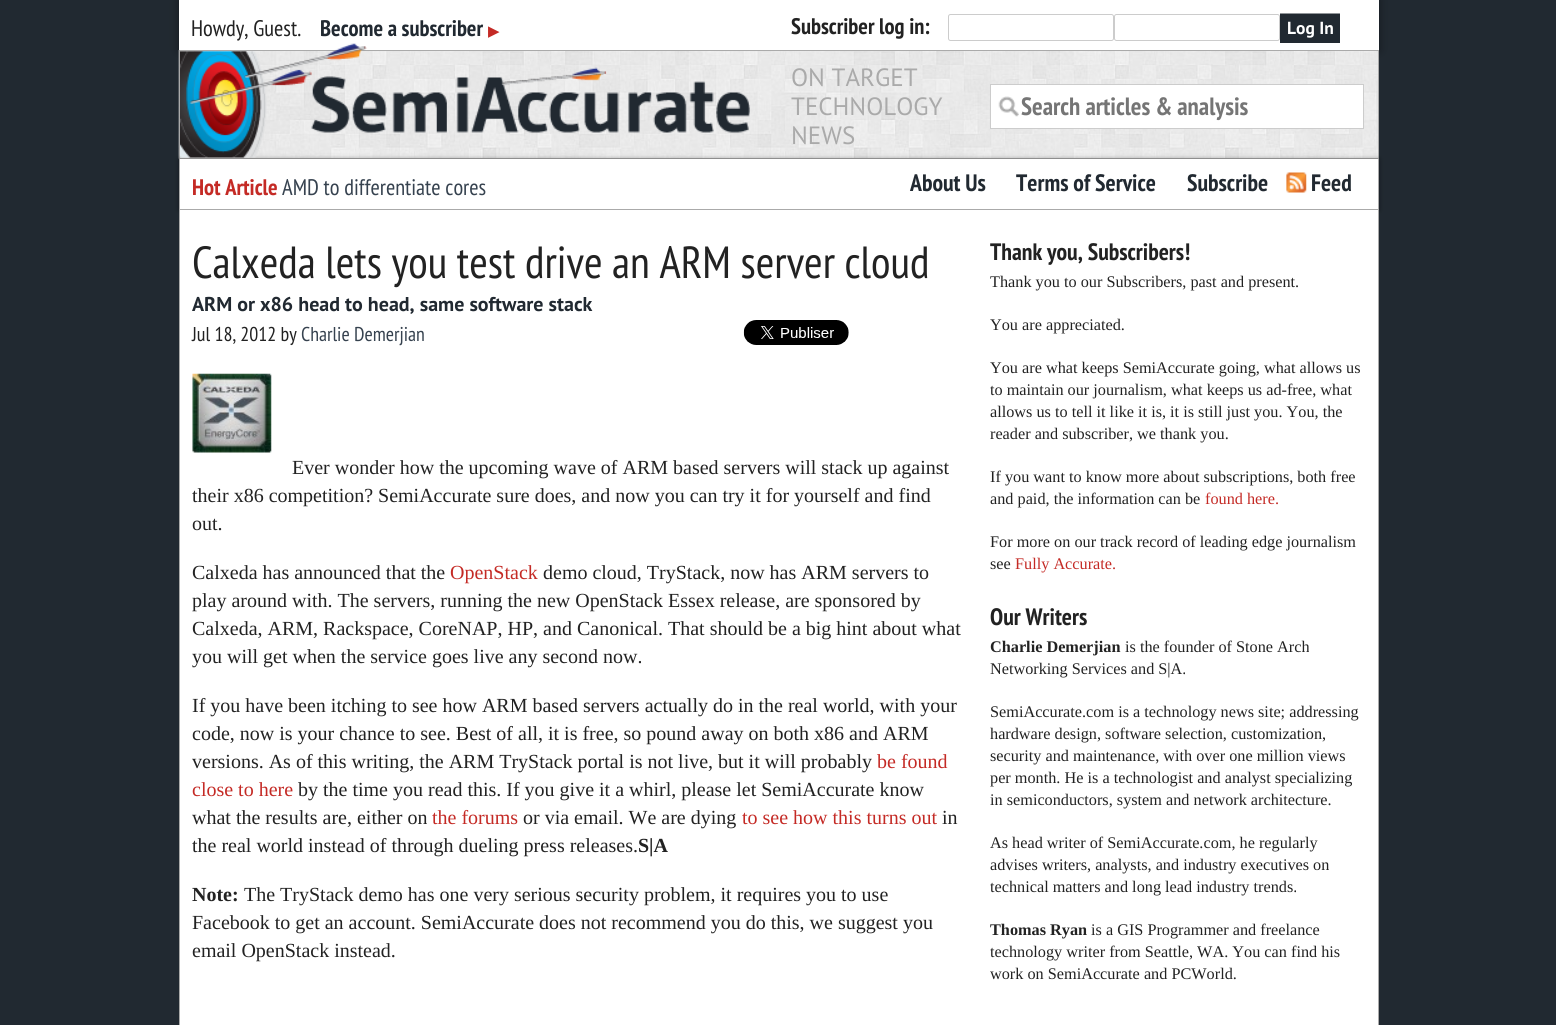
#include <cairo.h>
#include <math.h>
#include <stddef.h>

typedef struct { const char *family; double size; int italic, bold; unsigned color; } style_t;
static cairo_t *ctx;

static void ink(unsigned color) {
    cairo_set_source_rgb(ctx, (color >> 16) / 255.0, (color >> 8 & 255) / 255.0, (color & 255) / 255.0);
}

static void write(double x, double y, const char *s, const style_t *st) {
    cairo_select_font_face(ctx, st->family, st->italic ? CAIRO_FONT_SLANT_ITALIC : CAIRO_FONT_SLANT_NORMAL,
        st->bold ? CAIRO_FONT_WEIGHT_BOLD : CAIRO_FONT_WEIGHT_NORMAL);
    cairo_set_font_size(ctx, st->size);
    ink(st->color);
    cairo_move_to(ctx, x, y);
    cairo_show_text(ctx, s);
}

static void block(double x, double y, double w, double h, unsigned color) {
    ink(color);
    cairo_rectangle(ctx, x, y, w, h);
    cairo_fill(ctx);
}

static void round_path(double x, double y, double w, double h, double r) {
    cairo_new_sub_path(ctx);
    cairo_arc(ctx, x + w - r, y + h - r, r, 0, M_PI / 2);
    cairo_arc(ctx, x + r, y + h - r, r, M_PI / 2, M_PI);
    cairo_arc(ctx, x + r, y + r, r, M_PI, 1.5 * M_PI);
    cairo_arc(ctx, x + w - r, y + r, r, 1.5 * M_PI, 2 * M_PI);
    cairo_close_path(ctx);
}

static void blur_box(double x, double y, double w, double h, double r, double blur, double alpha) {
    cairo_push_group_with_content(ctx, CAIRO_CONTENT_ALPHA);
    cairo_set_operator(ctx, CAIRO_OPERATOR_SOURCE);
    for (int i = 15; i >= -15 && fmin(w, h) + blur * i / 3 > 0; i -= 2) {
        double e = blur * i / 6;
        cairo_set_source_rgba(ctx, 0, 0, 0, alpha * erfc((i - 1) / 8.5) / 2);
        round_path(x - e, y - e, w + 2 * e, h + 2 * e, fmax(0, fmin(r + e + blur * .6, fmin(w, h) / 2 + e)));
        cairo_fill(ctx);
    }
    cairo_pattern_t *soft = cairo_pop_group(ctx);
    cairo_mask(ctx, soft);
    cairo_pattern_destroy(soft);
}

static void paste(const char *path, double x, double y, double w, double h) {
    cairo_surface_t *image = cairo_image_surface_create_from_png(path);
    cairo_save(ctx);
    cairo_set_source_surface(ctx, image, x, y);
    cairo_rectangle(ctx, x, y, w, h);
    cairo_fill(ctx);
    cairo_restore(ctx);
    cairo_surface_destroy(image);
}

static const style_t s1 = {"PT Sans Narrow", 22.5, 0, 0, 0x222222};
static const style_t s2 = {"PT Sans Narrow", 22.5, 0, 1, 0x212931};
static const style_t s3 = {"DejaVu Sans", 15, 0, 0, 0xc42a25};
static const style_t s4 = {"PT Sans Narrow", 22.5, 0, 1, 0x222222};
static const style_t s5 = {"PT Sans", 17.5, 0, 1, 0xffffff};
static const style_t s6 = {"PT Sans", 25, 0, 0, 0xaaaaaa};
static const style_t s7 = {"PT Sans Narrow", 25, 0, 1, 0x757575};
static const style_t s8 = {"PT Sans Narrow", 22.5, 0, 1, 0xc42a25};
static const style_t s9 = {"PT Sans Narrow", 22.5, 0, 0, 0x36424f};
static const style_t s10 = {"PT Sans Narrow", 23.75, 0, 1, 0x212931};
static const style_t s11 = {"PT Sans Narrow", 45, 0, 0, 0x222222};
static const style_t s12 = {"PT Sans", 20, 0, 1, 0x212931};
static const style_t s13 = {"PT Sans Narrow", 20, 0, 0, 0x222222};
static const style_t s14 = {"PT Sans Narrow", 20, 0, 0, 0x36424f};
static const style_t s15 = {"Liberation Serif", 20, 0, 0, 0x222222};
static const style_t s16 = {"Liberation Serif", 20, 0, 0, 0xc42a25};
static const style_t s17 = {"Liberation Serif", 20, 0, 1, 0x222222};
static const style_t s18 = {"PT Sans Narrow", 23.75, 0, 1, 0x222222};
static const style_t s19 = {"Liberation Serif", 16.25, 0, 0, 0x222222};
static const style_t s20 = {"Liberation Serif", 16.25, 0, 0, 0xc42a25};
static const style_t s21 = {"Liberation Serif", 16.25, 0, 1, 0x222222};

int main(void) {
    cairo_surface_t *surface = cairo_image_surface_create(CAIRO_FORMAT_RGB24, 1556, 1025);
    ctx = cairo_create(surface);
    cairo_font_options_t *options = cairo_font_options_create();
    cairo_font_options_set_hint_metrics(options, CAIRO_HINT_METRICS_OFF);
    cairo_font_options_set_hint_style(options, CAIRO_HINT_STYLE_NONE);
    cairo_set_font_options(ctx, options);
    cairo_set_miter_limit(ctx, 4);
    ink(0x212931);
    cairo_paint(ctx);
    ink(0x000000);
    blur_box(179, 0, 1200, 50, 0, 5, 0.4);
    block(179, 0, 1200, 50, 0xffffff);
    write(191, 36, "Howdy, Guest.", &s1);
    write(320, 36, "Become a subscriber", &s2);
    write(488, 36, "▶", &s3);
    write(791, 34, "Subscriber log in:", &s4);
    round_path(948.5, 14.5, 165, 26, 2);
    ink(0xcccccc);
    cairo_set_line_width(ctx, 1);
    cairo_stroke(ctx);
    round_path(1114.5, 14.5, 165, 26, 2);
    cairo_stroke(ctx);
    block(1280, 14, 60, 29, 0x212931);
    block(1280, 13, 60, 1, 0x909498);
    write(1287, 34, "Log In", &s5);
    paste("pic1.png", 178, 50, 1200, 109);
    cairo_rectangle(ctx, 179.5, 50.5, 1199, 108);
    ink(0xaaaaaa);
    cairo_stroke(ctx);
    ink(0x000000);
    blur_box(179, 159, 1200, 51, 0, 2.5, 0.4);
    paste("pic2.png", 180, 43, 570, 115);
    write(791, 86, "ON TARGET", &s6);
    write(791, 115, "TECHNOLOGY", &s6);
    write(791, 144, "NEWS", &s6);
    block(991, 85, 372, 43, 0xffffff);
    paste("pic3.png", 998, 96, 21, 21);
    cairo_rectangle(ctx, 990.5, 84.5, 373, 44);
    ink(0xcccccc);
    cairo_stroke(ctx);
    write(1021, 115, "Search articles & analysis", &s7);
    block(180, 159, 1198, 50, 0xffffff);
    block(1378, 159, 1, 866, 0xaaaaaa);
    block(179, 209, 1200, 1, 0xaaaaaa);
    block(179, 159, 1, 866, 0xaaaaaa);
    write(192, 195, "Hot Article", &s8);
    write(282, 195, "AMD to differentiate cores", &s9);
    write(910, 191, "About Us", &s10);
    write(1016, 191, "Terms of Service", &s10);
    write(1187, 191, "Subscribe", &s10);
    paste("pic4.png", 1286, 172, 21, 21);
    cairo_set_source_rgba(ctx, 1, 1, 1, 0.2);
    cairo_rectangle(ctx, 1286, 173, 1, 19);
    cairo_fill(ctx);
    write(1311, 191, "Feed", &s10);
    block(180, 210, 1198, 815, 0xffffff);
    write(192, 278, "Calxeda lets you test drive an ARM server cloud", &s11);
    write(192, 311, "ARM or x86 head to head, same software stack", &s12);
    write(192, 341, "Jul 18, 2012 by", &s13);
    write(301, 341, "Charlie Demerjian", &s14);
    paste("pic5.png", 743, 320, 106, 25);
    paste("pic6.png", 192, 373, 80, 80);
    write(292, 474, "Ever wonder how the upcoming wave of ARM based servers will stack up against", &s15);
    write(192, 502, "their x86 competition? SemiAccurate sure does, and now you can try it for yourself and find", &s15);
    write(192, 530, "out.", &s15);
    write(192, 579, "Calxeda has announced that the", &s15);
    write(450, 579, "OpenStack", &s16);
    write(543, 579, "demo cloud, TryStack, now has ARM servers to", &s15);
    write(192, 607, "play around with. The servers, running the new OpenStack Essex release, are sponsored by", &s15);
    write(192, 635, "Calxeda, ARM, Rackspace, CoreNAP, HP, and Canonical. That should be a big hint about what", &s15);
    write(192, 663, "you will get when the service goes live any second now.", &s15);
    write(192, 712, "If you have been itching to see how ARM based servers actually do in the real world, with your", &s15);
    write(192, 740, "code, now is your chance to see. Best of all, it is free, so pound away on both x86 and ARM", &s15);
    write(192, 768, "versions. As of this writing, the ARM TryStack portal is not live, but it will probably", &s15);
    write(877, 768, "be found", &s16);
    write(192, 796, "close to here", &s16);
    write(298, 796, "by the time you read this. If you give it a whirl, please let SemiAccurate know", &s15);
    write(192, 824, "what the results are, either on", &s15);
    write(432, 824, "the forums", &s16);
    write(523, 824, "or via email. We are dying", &s15);
    write(742, 824, "to see how this turns out", &s16);
    write(942, 824, "in", &s15);
    write(192, 852, "the real world instead of through dueling press releases.", &s15);
    write(638, 852, "S|A", &s17);
    write(192, 901, "Note:", &s17);
    write(244, 901, "The TryStack demo has one very serious security problem, it requires you to use", &s15);
    write(192, 929, "Facebook to get an account. SemiAccurate does not recommend you do this, we suggest you", &s15);
    write(192, 957, "email OpenStack instead.", &s15);
    write(990, 260, "Thank you, Subscribers!", &s18);
    write(990, 287, "Thank you to our Subscribers, past and present.", &s19);
    write(990, 330, "You are appreciated.", &s19);
    write(990, 373, "You are what keeps SemiAccurate going, what allows us", &s19);
    write(990, 395, "to maintain our journalism, what keeps us ad-free, what", &s19);
    write(990, 417, "allows us to tell it like it is, it is still just you. You, the", &s19);
    write(990, 439, "reader and subscriber, we thank you.", &s19);
    write(990, 482, "If you want to know more about subscriptions, both free", &s19);
    write(990, 504, "and paid, the information can be", &s19);
    write(1205, 504, "found here.", &s20);
    write(990, 547, "For more on our track record of leading edge journalism", &s19);
    write(990, 569, "see", &s19);
    write(1015, 569, "Fully Accurate.", &s20);
    write(990, 625, "Our Writers", &s18);
    write(990, 652, "Charlie Demerjian", &s21);
    write(1125, 652, "is the founder of Stone Arch", &s19);
    write(990, 674, "Networking Services and S|A.", &s19);
    write(990, 717, "SemiAccurate.com is a technology news site; addressing", &s19);
    write(990, 739, "hardware design, software selection, customization,", &s19);
    write(990, 761, "security and maintenance, with over one million views", &s19);
    write(990, 783, "per month. He is a technologist and analyst specializing", &s19);
    write(990, 805, "in semiconductors, system and network architecture.", &s19);
    write(990, 848, "As head writer of SemiAccurate.com, he regularly", &s19);
    write(990, 870, "advises writers, analysts, and industry executives on", &s19);
    write(990, 892, "technical matters and long lead industry trends.", &s19);
    write(990, 935, "Thomas Ryan", &s21);
    write(1091, 935, "is a GIS Programmer and freelance", &s19);
    write(990, 957, "technology writer from Seattle, WA. You can find his", &s19);
    write(990, 979, "work on SemiAccurate and PCWorld.", &s19);
    cairo_surface_write_to_png(surface, "screenshot.png");
    cairo_font_options_destroy(options);
    cairo_destroy(ctx);
    cairo_surface_destroy(surface);
    return 0;
}
